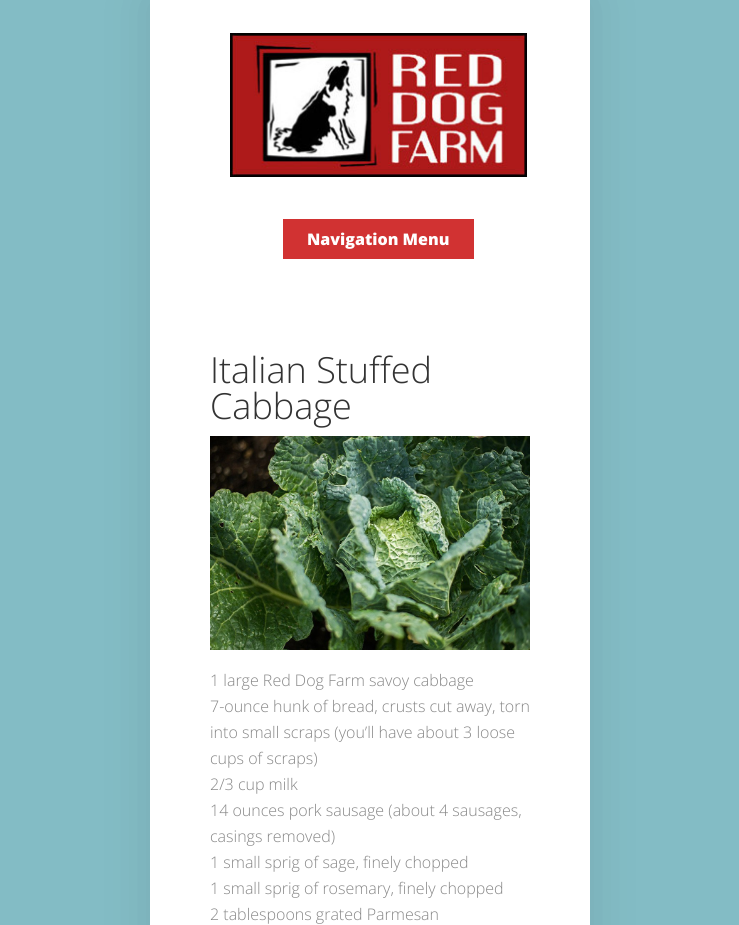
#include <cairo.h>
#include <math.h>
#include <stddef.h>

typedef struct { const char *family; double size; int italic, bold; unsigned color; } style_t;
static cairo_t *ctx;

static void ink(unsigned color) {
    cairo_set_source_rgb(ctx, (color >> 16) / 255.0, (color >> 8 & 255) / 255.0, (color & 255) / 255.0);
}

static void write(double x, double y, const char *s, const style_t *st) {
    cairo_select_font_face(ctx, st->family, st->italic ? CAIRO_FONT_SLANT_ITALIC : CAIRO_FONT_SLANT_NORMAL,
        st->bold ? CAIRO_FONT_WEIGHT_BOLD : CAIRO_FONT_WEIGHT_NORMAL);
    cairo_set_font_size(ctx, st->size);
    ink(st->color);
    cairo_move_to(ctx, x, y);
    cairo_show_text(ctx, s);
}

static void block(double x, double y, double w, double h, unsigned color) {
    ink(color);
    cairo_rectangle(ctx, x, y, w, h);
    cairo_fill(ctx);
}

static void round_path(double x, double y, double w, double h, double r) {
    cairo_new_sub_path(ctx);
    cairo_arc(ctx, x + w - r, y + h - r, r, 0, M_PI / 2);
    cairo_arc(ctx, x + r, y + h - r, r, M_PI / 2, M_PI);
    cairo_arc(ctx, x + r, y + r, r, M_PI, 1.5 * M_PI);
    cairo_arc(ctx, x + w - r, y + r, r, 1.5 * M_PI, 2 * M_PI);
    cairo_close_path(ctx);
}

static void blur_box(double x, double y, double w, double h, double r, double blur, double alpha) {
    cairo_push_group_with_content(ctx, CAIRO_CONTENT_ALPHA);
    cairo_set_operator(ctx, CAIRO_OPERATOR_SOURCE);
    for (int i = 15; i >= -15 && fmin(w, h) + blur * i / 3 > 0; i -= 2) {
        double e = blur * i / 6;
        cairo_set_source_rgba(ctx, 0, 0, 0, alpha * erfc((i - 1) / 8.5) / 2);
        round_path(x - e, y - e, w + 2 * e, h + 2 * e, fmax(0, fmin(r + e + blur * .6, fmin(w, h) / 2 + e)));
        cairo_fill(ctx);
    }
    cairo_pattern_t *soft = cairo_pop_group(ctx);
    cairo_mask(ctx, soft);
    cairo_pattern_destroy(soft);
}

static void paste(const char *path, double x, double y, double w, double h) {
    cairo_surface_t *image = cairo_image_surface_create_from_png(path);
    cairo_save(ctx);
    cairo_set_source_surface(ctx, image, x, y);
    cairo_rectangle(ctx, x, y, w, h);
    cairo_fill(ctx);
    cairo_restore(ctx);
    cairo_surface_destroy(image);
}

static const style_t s1 = {"Open Sans ExtraBold", 16, 0, 0, 0xffffff};
static const style_t s2 = {"Open Sans Light", 36, 0, 0, 0x333333};
static const style_t s3 = {"Open Sans Light", 16, 0, 0, 0x878787};

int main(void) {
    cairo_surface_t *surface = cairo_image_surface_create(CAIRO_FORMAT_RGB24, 739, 925);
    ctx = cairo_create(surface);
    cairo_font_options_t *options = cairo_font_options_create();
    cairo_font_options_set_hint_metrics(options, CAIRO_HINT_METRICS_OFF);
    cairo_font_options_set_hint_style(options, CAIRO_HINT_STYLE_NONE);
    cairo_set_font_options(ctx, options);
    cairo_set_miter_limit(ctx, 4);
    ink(0x83bcc5);
    cairo_paint(ctx);
    ink(0x000000);
    blur_box(150, 0, 440, 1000, 0, 25, 0.1);
    block(150, 0, 440, 925, 0xffffff);
    paste("pic1.png", 230, 33, 297, 144);
    block(283, 219, 191, 40, 0xd13232);
    write(307, 245, "Navigation Menu", &s1);
    write(210, 383, "Italian Stuffed", &s2);
    write(210, 419, "Cabbage", &s2);
    paste("pic2.png", 210, 436, 320, 214);
    write(210, 686, "1 large Red Dog Farm savoy cabbage", &s3);
    write(210, 712, "7-ounce hunk of bread, crusts cut away, torn", &s3);
    write(210, 738, "into small scraps (you’ll have about 3 loose", &s3);
    write(210, 764, "cups of scraps)", &s3);
    write(210, 790, "2/3 cup milk", &s3);
    write(210, 816, "14 ounces pork sausage (about 4 sausages,", &s3);
    write(210, 842, "casings removed)", &s3);
    write(210, 868, "1 small sprig of sage, finely chopped", &s3);
    write(210, 894, "1 small sprig of rosemary, finely chopped", &s3);
    write(210, 920, "2 tablespoons grated Parmesan", &s3);
    cairo_surface_write_to_png(surface, "screenshot.png");
    cairo_font_options_destroy(options);
    cairo_destroy(ctx);
    cairo_surface_destroy(surface);
    return 0;
}
